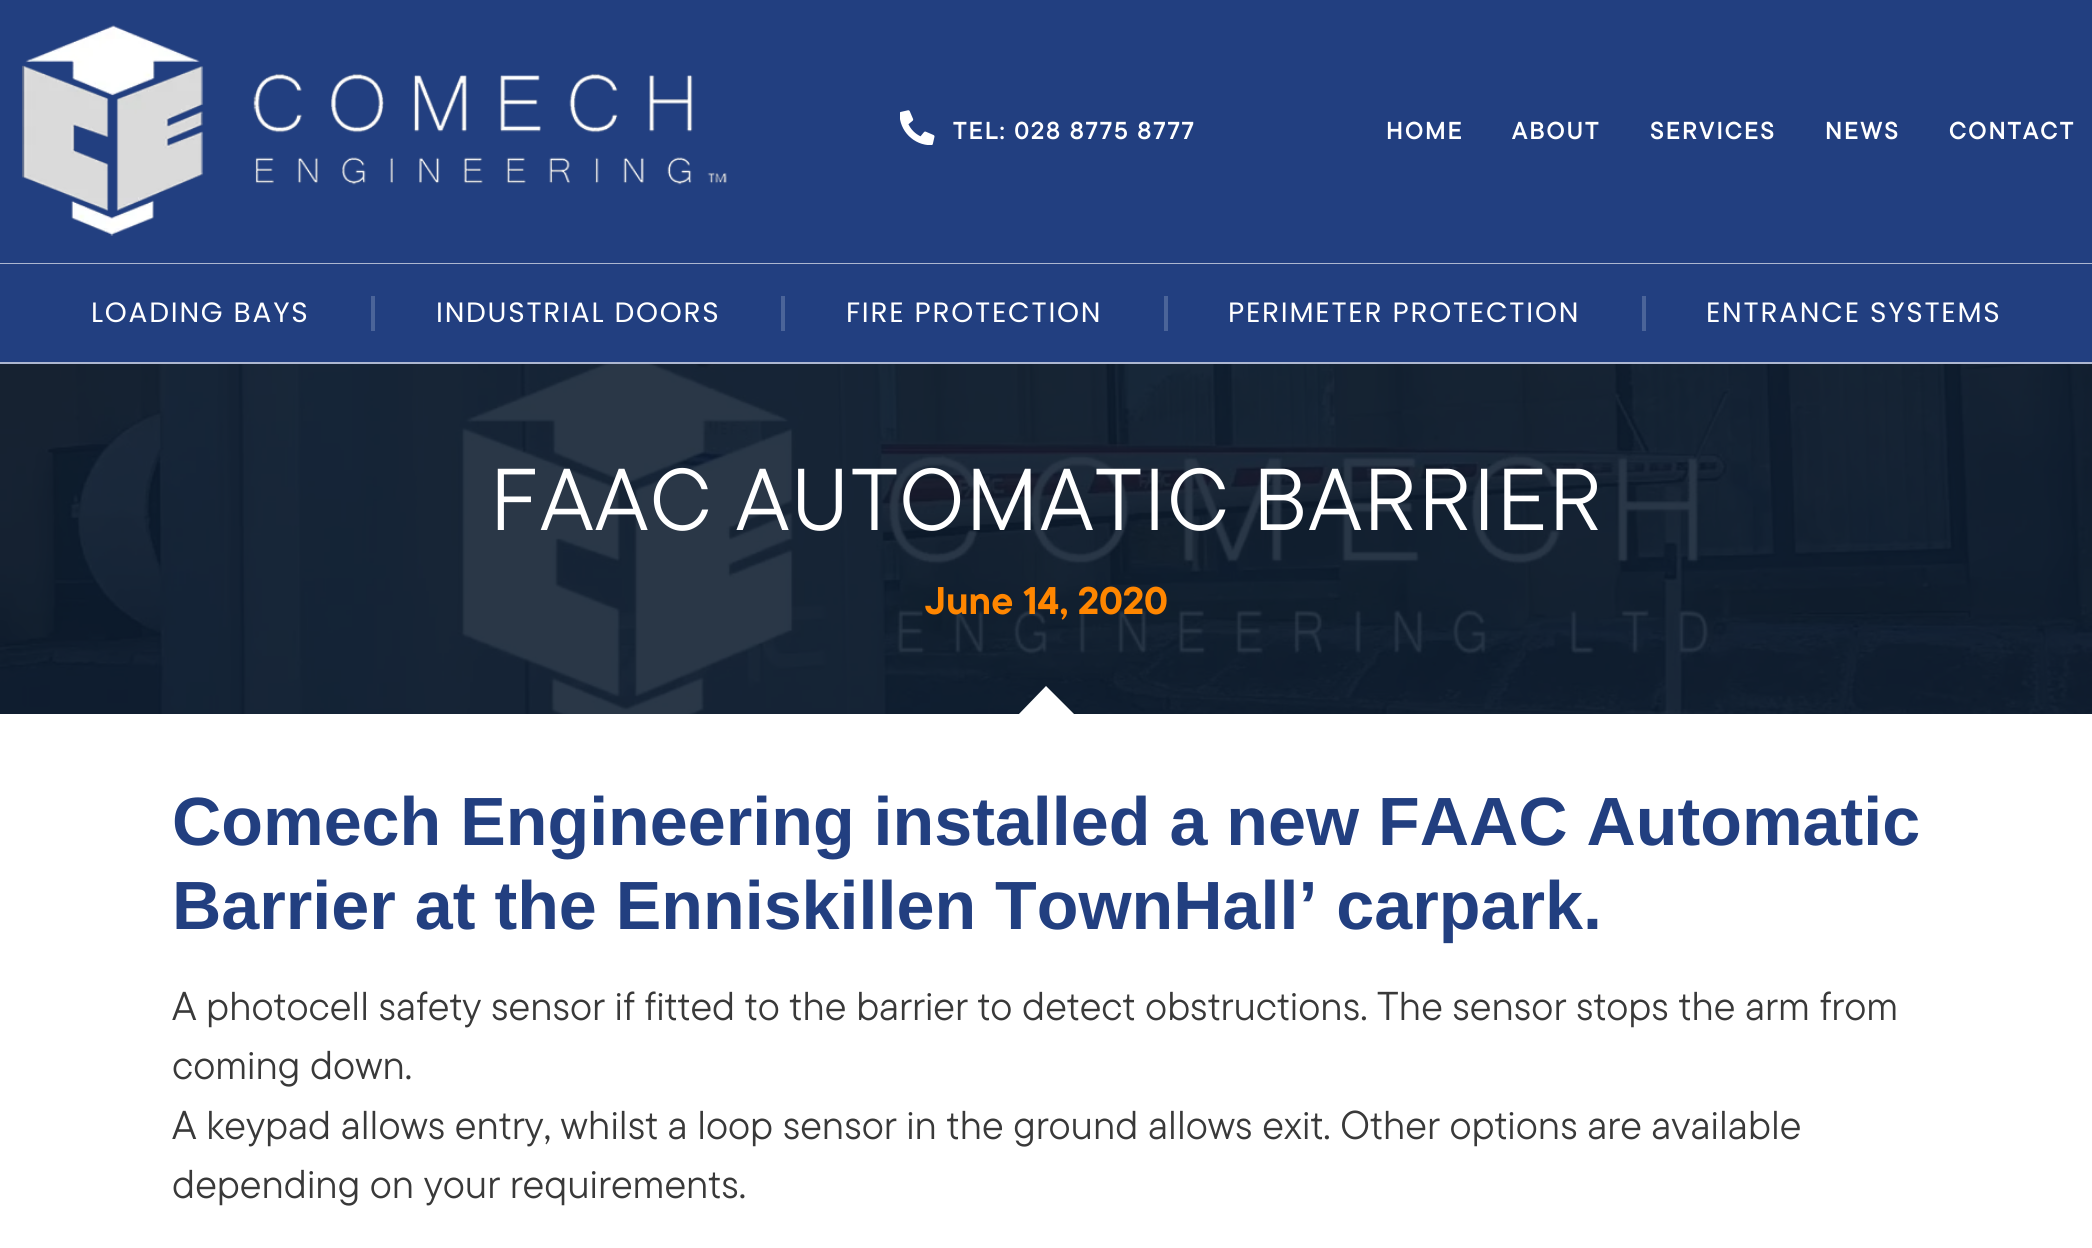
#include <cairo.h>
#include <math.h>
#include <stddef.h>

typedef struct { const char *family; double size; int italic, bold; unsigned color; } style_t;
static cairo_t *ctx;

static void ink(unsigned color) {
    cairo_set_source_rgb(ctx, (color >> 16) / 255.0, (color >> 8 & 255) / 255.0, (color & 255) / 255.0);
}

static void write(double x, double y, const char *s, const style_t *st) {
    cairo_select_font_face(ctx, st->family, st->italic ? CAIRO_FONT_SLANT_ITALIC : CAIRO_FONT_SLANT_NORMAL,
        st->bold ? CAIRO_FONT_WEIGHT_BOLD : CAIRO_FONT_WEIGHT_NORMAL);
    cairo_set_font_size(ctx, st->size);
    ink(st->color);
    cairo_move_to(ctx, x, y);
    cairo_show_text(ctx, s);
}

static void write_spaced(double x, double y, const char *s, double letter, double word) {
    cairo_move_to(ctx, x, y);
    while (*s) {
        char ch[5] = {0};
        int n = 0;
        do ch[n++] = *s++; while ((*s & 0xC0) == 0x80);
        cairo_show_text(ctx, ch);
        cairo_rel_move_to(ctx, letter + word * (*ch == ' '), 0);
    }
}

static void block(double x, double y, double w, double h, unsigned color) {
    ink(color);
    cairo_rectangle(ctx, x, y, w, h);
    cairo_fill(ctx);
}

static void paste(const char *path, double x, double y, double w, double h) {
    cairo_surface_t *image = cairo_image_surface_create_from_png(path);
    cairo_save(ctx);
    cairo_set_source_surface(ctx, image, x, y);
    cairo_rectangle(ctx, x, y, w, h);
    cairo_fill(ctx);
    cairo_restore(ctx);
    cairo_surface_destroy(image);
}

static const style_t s1 = {"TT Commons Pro", 38.5, 0, 1, 0xff8600};
static const style_t s2 = {"Liberation Sans", 68.25, 0, 1, 0x223f80};
static const style_t s3 = {"TT Commons Pro", 40.25, 0, 0, 0x393939};

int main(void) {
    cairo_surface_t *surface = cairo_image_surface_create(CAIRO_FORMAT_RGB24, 2092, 1248);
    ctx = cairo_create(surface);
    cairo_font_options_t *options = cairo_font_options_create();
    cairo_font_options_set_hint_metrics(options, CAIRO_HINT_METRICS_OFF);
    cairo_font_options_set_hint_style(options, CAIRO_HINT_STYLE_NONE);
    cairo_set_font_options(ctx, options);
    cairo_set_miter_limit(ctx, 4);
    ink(0xffffff);
    cairo_paint(ctx);
    block(0, 0, 2092, 263, 0x223f80);
    block(0, 263, 2092, 1, 0xadb7d0);
    paste("pic1.png", 22, 25, 705, 211);
    paste("pic2.png", 900, 110, 35, 35);
    cairo_select_font_face(ctx, "TT Commons Pro SemiBold", CAIRO_FONT_SLANT_NORMAL, CAIRO_FONT_WEIGHT_NORMAL);
    cairo_set_font_size(ctx, 24.5);
    ink(0xffffff);
    write_spaced(953, 139, "TEL: 028 8775 8777", 1.75, 0);
    write_spaced(1386, 139, "HOME", 1.75, 0);
    write_spaced(1512, 139, "ABOUT", 1.75, 0);
    write_spaced(1650, 139, "SERVICES", 1.75, 0);
    write_spaced(1825, 139, "NEWS", 1.75, 0);
    write_spaced(1949, 139, "CONTACT", 1.75, 0);
    block(0, 264, 2092, 98, 0x223f80);
    cairo_select_font_face(ctx, "Poppins", CAIRO_FONT_SLANT_NORMAL, CAIRO_FONT_WEIGHT_NORMAL);
    cairo_set_font_size(ctx, 28);
    ink(0xffffff);
    write_spaced(91, 322, "LOADING BAYS", 1.75, 0);
    block(371, 296, 4, 35, 0x4b6499);
    ink(0xffffff);
    write_spaced(436, 322, "INDUSTRIAL DOORS", 1.75, 0);
    block(781, 296, 4, 35, 0x4b6499);
    ink(0xffffff);
    write_spaced(846, 322, "FIRE PROTECTION", 1.75, 0);
    block(1164, 296, 4, 35, 0x4b6499);
    ink(0xffffff);
    write_spaced(1228, 322, "PERIMETER PROTECTION", 1.75, 0);
    block(1642, 296, 4, 35, 0x4b6499);
    ink(0xffffff);
    write_spaced(1706, 322, "ENTRANCE SYSTEMS", 1.75, 0);
    block(0, 362, 2092, 2, 0xadb7d0);
    paste("pic3.png", 0, 364, 2092, 350);
    cairo_select_font_face(ctx, "TT Commons Pro", CAIRO_FONT_SLANT_NORMAL, CAIRO_FONT_WEIGHT_NORMAL);
    cairo_set_font_size(ctx, 87.5);
    ink(0xffffff);
    write_spaced(490, 530, "FAAC AUTOMATIC BARRIER", 1.75, 0);
    write(925, 614, "June 14, 2020", &s1);
    ink(0xffffff);
    cairo_new_path(ctx);
    cairo_move_to(ctx, 1046, 686);
    cairo_line_to(ctx, 1076, 716);
    cairo_line_to(ctx, 1017, 716);
    cairo_close_path(ctx);
    cairo_fill(ctx);
    write(172, 845, "Comech Engineering installed a new FAAC Automatic", &s2);
    write(172, 929, "Barrier at the Enniskillen TownHall’ carpark.", &s2);
    write(172, 1020, "A photocell safety sensor if fitted to the barrier to detect obstructions. The sensor stops the arm from", &s3);
    write(172, 1079, "coming down.", &s3);
    write(172, 1139, "A keypad allows entry, whilst a loop sensor in the ground allows exit. Other options are available", &s3);
    write(172, 1198, "depending on your requirements.", &s3);
    cairo_surface_write_to_png(surface, "screenshot.png");
    cairo_font_options_destroy(options);
    cairo_destroy(ctx);
    cairo_surface_destroy(surface);
    return 0;
}
